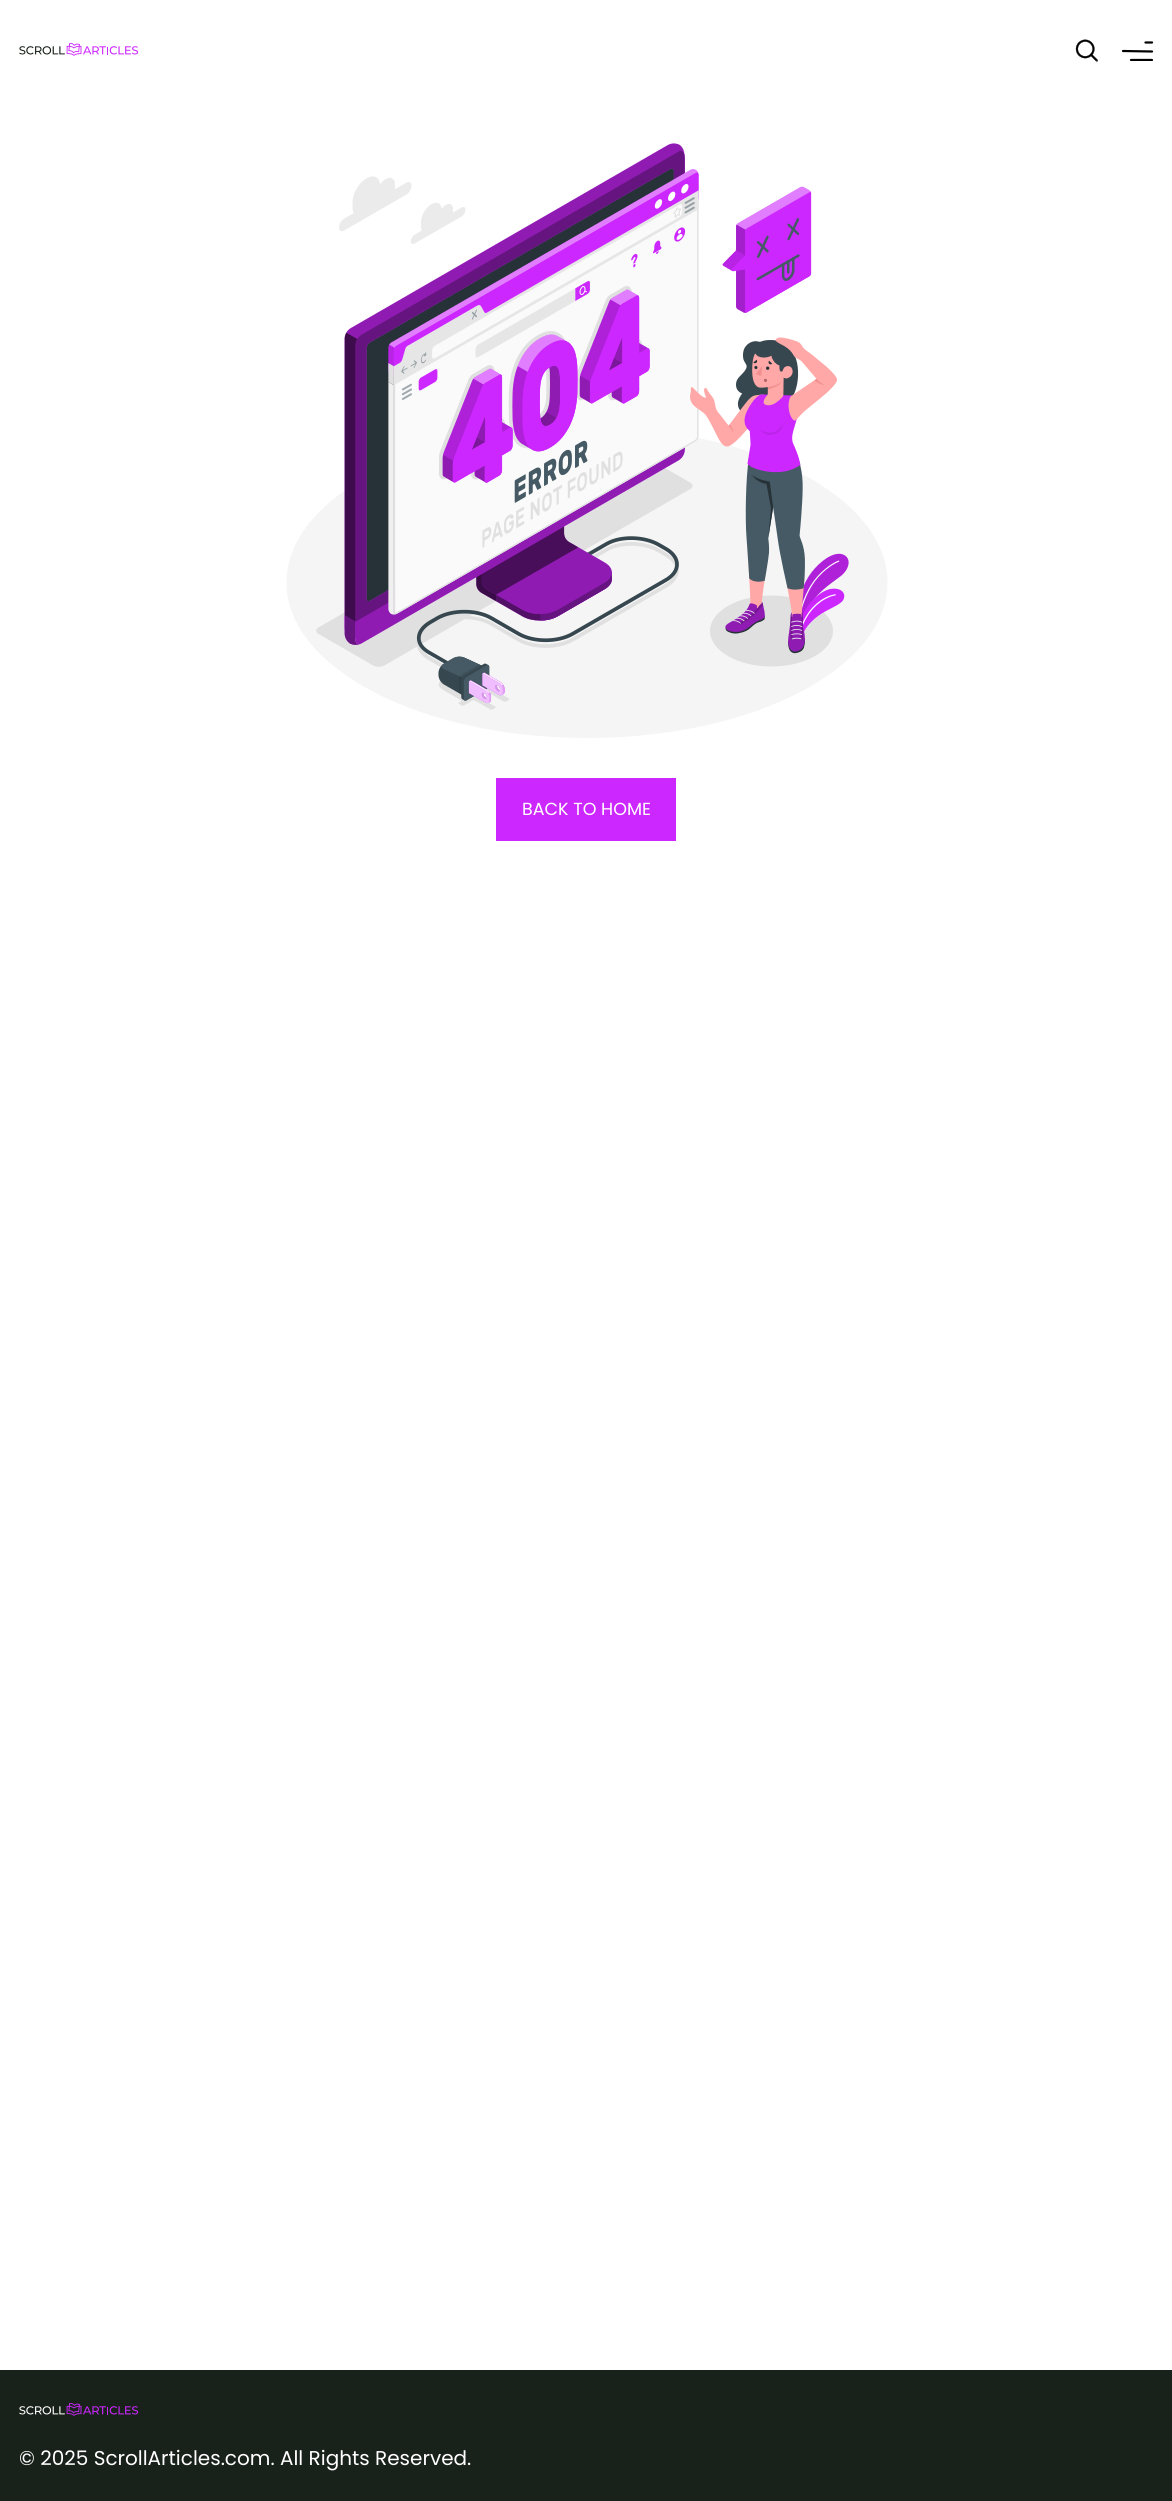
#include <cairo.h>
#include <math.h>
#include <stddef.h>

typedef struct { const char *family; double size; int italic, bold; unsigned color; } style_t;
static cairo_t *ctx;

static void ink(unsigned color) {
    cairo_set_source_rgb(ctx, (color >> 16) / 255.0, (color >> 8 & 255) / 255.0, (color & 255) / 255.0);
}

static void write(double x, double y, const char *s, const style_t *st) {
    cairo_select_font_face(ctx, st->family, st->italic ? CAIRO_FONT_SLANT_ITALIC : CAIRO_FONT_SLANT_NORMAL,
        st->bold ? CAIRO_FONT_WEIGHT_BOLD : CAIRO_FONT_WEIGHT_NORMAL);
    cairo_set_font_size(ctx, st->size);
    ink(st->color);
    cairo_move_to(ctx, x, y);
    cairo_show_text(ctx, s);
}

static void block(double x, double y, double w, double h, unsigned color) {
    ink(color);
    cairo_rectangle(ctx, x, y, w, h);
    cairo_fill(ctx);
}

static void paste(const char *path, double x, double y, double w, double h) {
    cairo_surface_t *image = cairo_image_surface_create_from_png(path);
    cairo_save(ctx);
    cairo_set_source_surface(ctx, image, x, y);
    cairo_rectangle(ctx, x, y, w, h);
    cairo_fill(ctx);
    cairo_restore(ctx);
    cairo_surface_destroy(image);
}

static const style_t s1 = {"Poppins", 17.5, 0, 0, 0xffffff};
static const style_t s2 = {"Poppins", 20, 0, 0, 0xffffff};

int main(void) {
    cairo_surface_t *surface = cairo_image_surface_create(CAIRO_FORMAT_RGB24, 1172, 2501);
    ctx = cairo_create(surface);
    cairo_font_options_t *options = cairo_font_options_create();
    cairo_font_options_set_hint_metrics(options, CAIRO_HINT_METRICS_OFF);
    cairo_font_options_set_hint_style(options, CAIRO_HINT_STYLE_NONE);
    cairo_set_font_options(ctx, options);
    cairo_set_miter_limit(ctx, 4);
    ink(0xffffff);
    cairo_paint(ctx);
    paste("pic1.png", 19, 43, 120, 13);
    paste("pic2.png", 1075, 39, 23, 23);
    cairo_new_path(ctx);
    cairo_move_to(ctx, 1145.5, 42.5);
    cairo_line_to(ctx, 1152, 42.5);
    cairo_move_to(ctx, 1123, 51);
    cairo_line_to(ctx, 1152, 51.5);
    ink(0x010101);
    cairo_set_line_width(ctx, 2.2);
    cairo_set_line_cap(ctx, CAIRO_LINE_CAP_ROUND);
    cairo_stroke(ctx);
    cairo_save(ctx);
    cairo_rectangle(ctx, 1121, 41, 33, 20);
    cairo_clip(ctx);
    cairo_new_path(ctx);
    cairo_move_to(ctx, 1131, 60);
    cairo_line_to(ctx, 1152, 60);
    cairo_stroke(ctx);
    cairo_restore(ctx);
    paste("pic3.png", 286, 143, 602, 595);
    block(496, 778, 180, 63, 0xcd27ff);
    write(522, 815, "BACK TO HOME", &s1);
    block(0, 2370, 1172, 131, 0x19211b);
    paste("pic4.png", 19, 2403, 120, 13);
    write(19, 2465, "© 2025 ScrollArticles.com. All Rights Reserved.", &s2);
    cairo_surface_write_to_png(surface, "screenshot.png");
    cairo_font_options_destroy(options);
    cairo_destroy(ctx);
    cairo_surface_destroy(surface);
    return 0;
}
